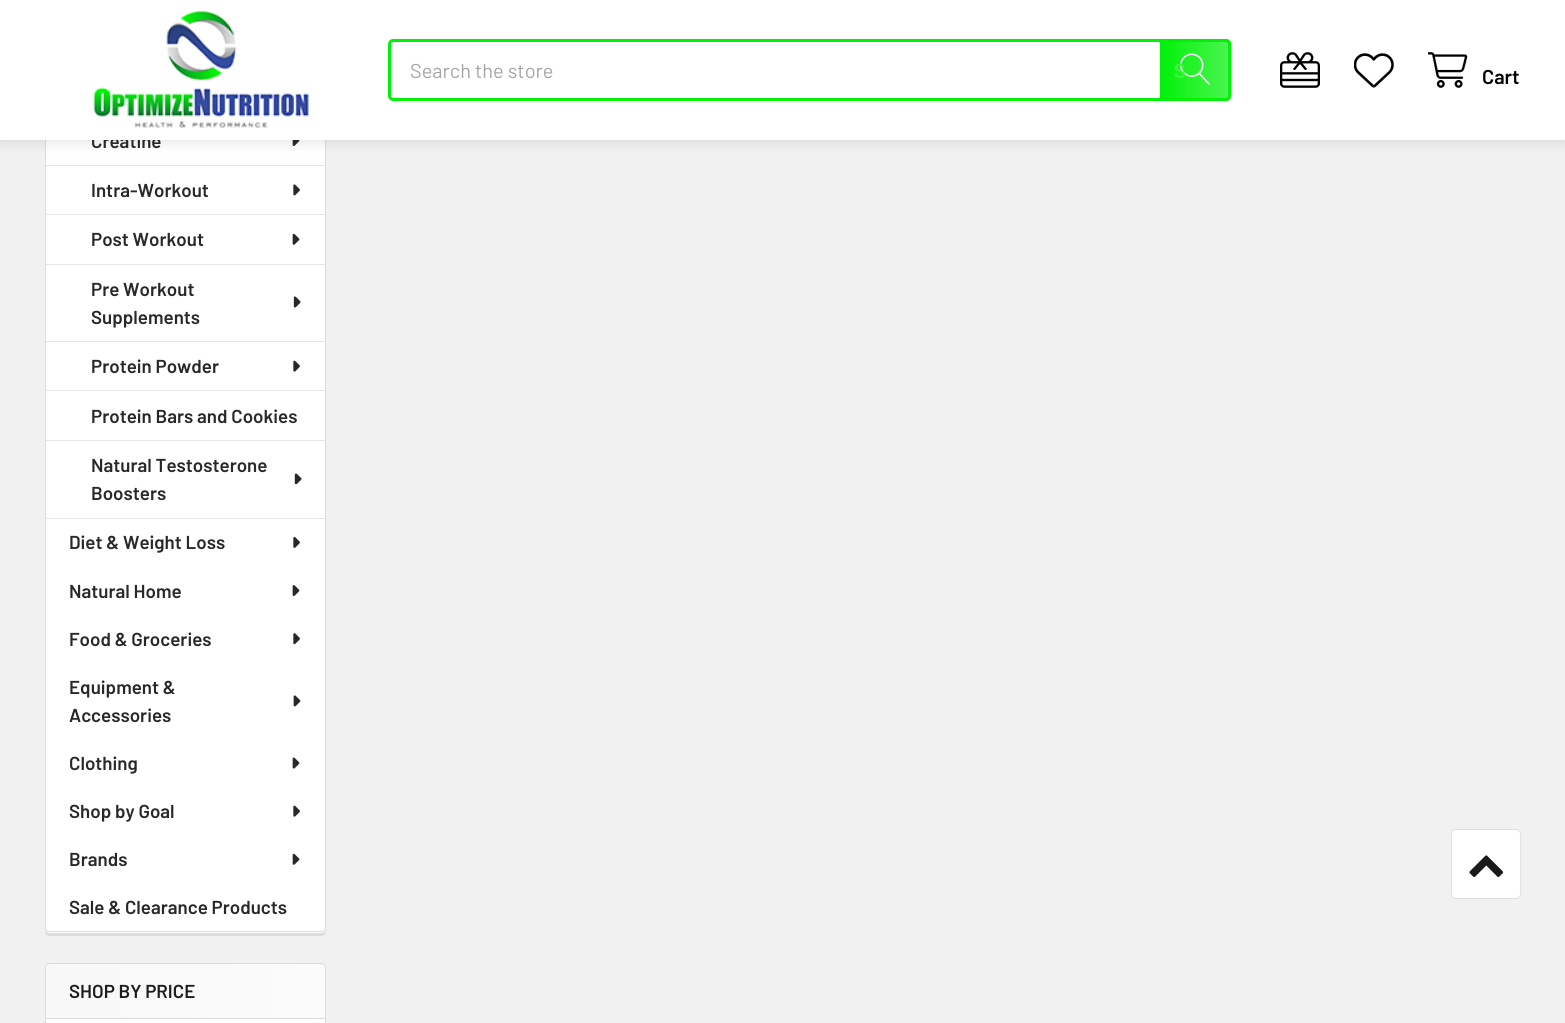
#include <cairo.h>
#include <math.h>
#include <stddef.h>

typedef struct { const char *family; double size; int italic, bold; unsigned color; } style_t;
static cairo_t *ctx;

static void ink(unsigned color) {
    cairo_set_source_rgb(ctx, (color >> 16) / 255.0, (color >> 8 & 255) / 255.0, (color & 255) / 255.0);
}

static void write(double x, double y, const char *s, const style_t *st) {
    cairo_select_font_face(ctx, st->family, st->italic ? CAIRO_FONT_SLANT_ITALIC : CAIRO_FONT_SLANT_NORMAL,
        st->bold ? CAIRO_FONT_WEIGHT_BOLD : CAIRO_FONT_WEIGHT_NORMAL);
    cairo_set_font_size(ctx, st->size);
    ink(st->color);
    cairo_move_to(ctx, x, y);
    cairo_show_text(ctx, s);
}

static void block(double x, double y, double w, double h, unsigned color) {
    ink(color);
    cairo_rectangle(ctx, x, y, w, h);
    cairo_fill(ctx);
}

static void round_path(double x, double y, double w, double h, double r) {
    cairo_new_sub_path(ctx);
    cairo_arc(ctx, x + w - r, y + h - r, r, 0, M_PI / 2);
    cairo_arc(ctx, x + r, y + h - r, r, M_PI / 2, M_PI);
    cairo_arc(ctx, x + r, y + r, r, M_PI, 1.5 * M_PI);
    cairo_arc(ctx, x + w - r, y + r, r, 1.5 * M_PI, 2 * M_PI);
    cairo_close_path(ctx);
}

static void blur_box(double x, double y, double w, double h, double r, double blur, double alpha) {
    cairo_push_group_with_content(ctx, CAIRO_CONTENT_ALPHA);
    cairo_set_operator(ctx, CAIRO_OPERATOR_SOURCE);
    for (int i = 15; i >= -15 && fmin(w, h) + blur * i / 3 > 0; i -= 2) {
        double e = blur * i / 6;
        cairo_set_source_rgba(ctx, 0, 0, 0, alpha * erfc((i - 1) / 8.5) / 2);
        round_path(x - e, y - e, w + 2 * e, h + 2 * e, fmax(0, fmin(r + e + blur * .6, fmin(w, h) / 2 + e)));
        cairo_fill(ctx);
    }
    cairo_pattern_t *soft = cairo_pop_group(ctx);
    cairo_mask(ctx, soft);
    cairo_pattern_destroy(soft);
}

static void paste(const char *path, double x, double y, double w, double h) {
    cairo_surface_t *image = cairo_image_surface_create_from_png(path);
    cairo_save(ctx);
    cairo_set_source_surface(ctx, image, x, y);
    cairo_rectangle(ctx, x, y, w, h);
    cairo_fill(ctx);
    cairo_restore(ctx);
    cairo_surface_destroy(image);
}

static const style_t s1 = {"Barlow SemiBold", 18.75, 0, 0, 0x282828};
static const style_t s2 = {"Barlow", 20, 0, 0, 0xa5a5a5};
static const style_t s3 = {"Barlow SemiBold", 20, 0, 0, 0x3ff444};
static const style_t s4 = {"Barlow SemiBold", 20, 0, 0, 0x000000};
static const style_t s5 = {"Barlow SemiBold", 18.75, 0, 0, 0x1d1d1d};

int main(void) {
    cairo_surface_t *surface = cairo_image_surface_create(CAIRO_FORMAT_RGB24, 1565, 1023);
    ctx = cairo_create(surface);
    cairo_font_options_t *options = cairo_font_options_create();
    cairo_font_options_set_hint_metrics(options, CAIRO_HINT_METRICS_OFF);
    cairo_font_options_set_hint_style(options, CAIRO_HINT_STYLE_NONE);
    cairo_set_font_options(ctx, options);
    cairo_set_miter_limit(ctx, 4);
    cairo_pattern_t *gradient;
    ink(0xf1f1f2);
    cairo_paint(ctx);
    ink(0xdcdcdc);
    cairo_new_path(ctx);
    cairo_move_to(ctx, 45, 928);
    cairo_line_to(ctx, 45, 931);
    cairo_curve_to(ctx, 45, 934, 47, 936, 50, 936);
    cairo_line_to(ctx, 321, 936);
    cairo_curve_to(ctx, 324, 936, 326, 934, 326, 931);
    cairo_line_to(ctx, 326, 929);
    cairo_curve_to(ctx, 325, 931, 323, 932, 321, 932);
    cairo_line_to(ctx, 50, 932);
    cairo_curve_to(ctx, 47, 932, 45, 930, 45, 928);
    cairo_close_path(ctx);
    cairo_fill(ctx);
    ink(0xffffff);
    cairo_new_path(ctx);
    cairo_move_to(ctx, 45, -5);
    cairo_line_to(ctx, 326, -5);
    cairo_line_to(ctx, 326, 928);
    cairo_curve_to(ctx, 326, 931, 324, 933, 321, 933);
    cairo_line_to(ctx, 50, 933);
    cairo_curve_to(ctx, 47, 933, 45, 931, 45, 928);
    cairo_close_path(ctx);
    cairo_fill(ctx);
    ink(0xdcdcdc);
    cairo_set_fill_rule(ctx, CAIRO_FILL_RULE_EVEN_ODD);
    cairo_new_path(ctx);
    cairo_move_to(ctx, 45, -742);
    cairo_line_to(ctx, 326, -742);
    cairo_line_to(ctx, 326, 928);
    cairo_curve_to(ctx, 326, 930, 324, 932, 321, 932);
    cairo_line_to(ctx, 50, 932);
    cairo_curve_to(ctx, 47, 932, 45, 930, 45, 928);
    cairo_close_path(ctx);
    cairo_move_to(ctx, 46, -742);
    cairo_line_to(ctx, 325, -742);
    cairo_line_to(ctx, 325, 928);
    cairo_curve_to(ctx, 325, 930, 323, 931, 321, 931);
    cairo_line_to(ctx, 50, 931);
    cairo_curve_to(ctx, 48, 931, 46, 930, 46, 928);
    cairo_close_path(ctx);
    cairo_fill(ctx);
    paste("pic6.png", 292, 140, 8, 6);
    ink(0x000000);
    blur_box(0, 3, 1565, 140, 0, 6, 0.1);
    write(91, 148, "Creatine", &s1);
    block(0, 0, 1565, 140, 0xffffff);
    paste("pic1.png", 93, 11, 216, 117);
    round_path(389.5, 40.5, 840, 59, 3.5);
    ink(0x01f108);
    cairo_set_line_width(ctx, 3);
    cairo_stroke(ctx);
    write(410, 78, "Search the store", &s2);
    gradient = cairo_pattern_create_linear(1160, 70, 1231, 70);
    cairo_pattern_add_color_stop_rgba(gradient, 0, 0.004, 0.945, 0.031, 1);
    cairo_pattern_add_color_stop_rgba(gradient, 1, 0.004, 0.945, 0.031, 0.7);
    cairo_set_source(ctx, gradient);
    cairo_pattern_destroy(gradient);
    cairo_new_path(ctx);
    cairo_move_to(ctx, 1160, 39);
    cairo_line_to(ctx, 1226, 39);
    cairo_curve_to(ctx, 1229, 39, 1231, 41, 1231, 44);
    cairo_line_to(ctx, 1231, 96);
    cairo_curve_to(ctx, 1231, 99, 1229, 101, 1226, 101);
    cairo_line_to(ctx, 1160, 101);
    cairo_close_path(ctx);
    cairo_fill(ctx);
    paste("pic2.png", 1180, 53, 30, 32);
    write(1174, 78, "S", &s3);
    paste("pic3.png", 1280, 52, 40, 36);
    paste("pic4.png", 1354, 53, 40, 35);
    paste("pic5.png", 1428, 52, 40, 36);
    write(1482, 84, "Cart", &s4);
    block(46, 165, 279, 1, 0xe6e6e6);
    block(46, 214, 279, 1, 0xe6e6e6);
    write(91, 197, "Intra-Workout", &s1);
    paste("pic7.png", 293, 184, 7, 12);
    block(46, 264, 279, 1, 0xe6e6e6);
    write(91, 246, "Post Workout", &s1);
    paste("pic8.png", 292, 233, 8, 12);
    block(46, 341, 279, 1, 0xe6e6e6);
    write(91, 296, "Pre Workout", &s1);
    paste("pic9.png", 293, 296, 8, 12);
    write(91, 324, "Supplements", &s1);
    block(46, 390, 279, 1, 0xe6e6e6);
    write(91, 373, "Protein Powder", &s1);
    paste("pic10.png", 293, 360, 7, 12);
    block(46, 440, 279, 1, 0xe6e6e6);
    write(91, 423, "Protein Bars and Cookies", &s1);
    block(46, 518, 279, 1, 0xe6e6e6);
    write(91, 472, "Natural Testosterone", &s1);
    paste("pic11.png", 294, 473, 8, 12);
    write(91, 500, "Boosters", &s1);
    write(69, 549, "Diet & Weight Loss", &s1);
    paste("pic12.png", 293, 536, 7, 12);
    write(69, 598, "Natural Home", &s1);
    paste("pic13.png", 292, 585, 8, 11);
    write(69, 646, "Food & Groceries", &s1);
    paste("pic14.png", 293, 633, 7, 12);
    write(69, 694, "Equipment &", &s1);
    paste("pic15.png", 293, 695, 8, 12);
    write(69, 722, "Accessories", &s1);
    write(69, 770, "Clothing", &s1);
    paste("pic16.png", 292, 757, 8, 12);
    write(69, 818, "Shop by Goal", &s1);
    paste("pic10.png", 293, 805, 7, 12);
    write(69, 866, "Brands", &s1);
    paste("pic8.png", 292, 853, 8, 12);
    write(69, 914, "Sale & Clearance Products", &s1);
    ink(0xffffff);
    round_path(45.5, 963.5, 280, 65, 4.5);
    cairo_fill_preserve(ctx);
    ink(0xdcdcdc);
    cairo_set_line_width(ctx, 1);
    cairo_stroke(ctx);
    gradient = cairo_pattern_create_linear(46, 991, 325, 991);
    cairo_pattern_add_color_stop_rgba(gradient, 0, 0.973, 0.973, 0.973, 1);
    cairo_pattern_add_color_stop_rgba(gradient, 1, 0.973, 0.973, 0.973, 0.6);
    cairo_set_source(ctx, gradient);
    cairo_pattern_destroy(gradient);
    cairo_new_path(ctx);
    cairo_move_to(ctx, 50, 964);
    cairo_line_to(ctx, 321, 964);
    cairo_curve_to(ctx, 323, 964, 325, 966, 325, 968);
    cairo_line_to(ctx, 325, 1019);
    cairo_line_to(ctx, 46, 1019);
    cairo_line_to(ctx, 46, 968);
    cairo_curve_to(ctx, 46, 966, 48, 964, 50, 964);
    cairo_close_path(ctx);
    cairo_fill(ctx);
    block(46, 1018, 279, 1, 0xdcdcdc);
    write(69, 998, "SHOP BY PRICE", &s5);
    ink(0xffffff);
    round_path(1451.5, 829.5, 69, 69, 4.5);
    cairo_fill_preserve(ctx);
    ink(0xe0e1e4);
    cairo_stroke(ctx);
    paste("pic17.png", 1469, 855, 35, 22);
    cairo_surface_write_to_png(surface, "screenshot.png");
    cairo_font_options_destroy(options);
    cairo_destroy(ctx);
    cairo_surface_destroy(surface);
    return 0;
}
